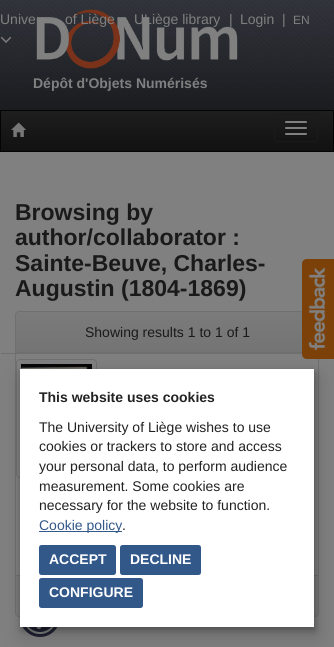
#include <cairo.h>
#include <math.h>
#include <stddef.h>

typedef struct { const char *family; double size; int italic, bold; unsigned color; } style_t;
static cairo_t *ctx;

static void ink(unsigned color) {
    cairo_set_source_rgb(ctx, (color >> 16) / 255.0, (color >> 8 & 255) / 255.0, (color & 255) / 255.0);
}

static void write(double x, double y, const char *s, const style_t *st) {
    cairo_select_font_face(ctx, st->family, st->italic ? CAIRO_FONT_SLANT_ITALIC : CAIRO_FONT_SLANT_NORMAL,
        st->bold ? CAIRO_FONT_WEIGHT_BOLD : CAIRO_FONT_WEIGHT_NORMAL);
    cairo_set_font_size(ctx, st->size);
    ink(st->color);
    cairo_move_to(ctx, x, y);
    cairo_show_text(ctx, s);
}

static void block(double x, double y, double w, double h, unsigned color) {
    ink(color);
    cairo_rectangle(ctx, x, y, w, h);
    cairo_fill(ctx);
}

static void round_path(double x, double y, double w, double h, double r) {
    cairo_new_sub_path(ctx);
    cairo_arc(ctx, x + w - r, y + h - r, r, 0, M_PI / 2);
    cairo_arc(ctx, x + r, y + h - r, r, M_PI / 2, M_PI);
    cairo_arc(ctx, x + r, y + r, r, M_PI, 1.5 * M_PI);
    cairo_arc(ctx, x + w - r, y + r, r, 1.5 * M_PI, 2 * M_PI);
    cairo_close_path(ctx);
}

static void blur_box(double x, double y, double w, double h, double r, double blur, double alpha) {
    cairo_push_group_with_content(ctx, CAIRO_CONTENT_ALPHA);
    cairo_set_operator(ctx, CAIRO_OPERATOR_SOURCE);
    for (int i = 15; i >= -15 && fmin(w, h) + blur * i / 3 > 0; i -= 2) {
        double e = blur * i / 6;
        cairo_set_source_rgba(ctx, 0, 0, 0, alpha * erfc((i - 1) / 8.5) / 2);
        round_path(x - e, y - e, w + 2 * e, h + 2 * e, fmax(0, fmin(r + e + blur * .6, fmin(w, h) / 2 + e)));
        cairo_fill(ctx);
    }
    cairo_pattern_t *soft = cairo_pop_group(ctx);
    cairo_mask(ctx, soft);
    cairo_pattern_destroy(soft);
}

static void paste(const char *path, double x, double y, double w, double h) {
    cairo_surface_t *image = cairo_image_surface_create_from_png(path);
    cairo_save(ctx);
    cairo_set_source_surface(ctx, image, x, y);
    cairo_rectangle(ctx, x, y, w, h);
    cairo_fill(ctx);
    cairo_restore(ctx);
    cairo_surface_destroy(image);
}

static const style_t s1 = {"Liberation Sans", 14, 0, 0, 0x808080};
static const style_t s2 = {"Liberation Sans", 12, 0, 0, 0x808080};
static const style_t s3 = {"Liberation Sans", 14, 0, 1, 0x808080};
static const style_t s4 = {"Liberation Sans", 23, 0, 1, 0x1a1a1a};
static const style_t s5 = {"Liberation Sans", 14, 0, 0, 0x1a1a1a};
static const style_t s6 = {"Liberation Sans", 14, 0, 1, 0x222222};
static const style_t s7 = {"Liberation Sans", 14, 0, 0, 0x222222};
static const style_t s8 = {"Liberation Sans", 14, 0, 0, 0x32588a};
static const style_t s9 = {"Liberation Sans", 14, 0, 1, 0xffffff};

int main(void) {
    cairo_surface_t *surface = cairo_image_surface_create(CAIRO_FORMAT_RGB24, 334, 647);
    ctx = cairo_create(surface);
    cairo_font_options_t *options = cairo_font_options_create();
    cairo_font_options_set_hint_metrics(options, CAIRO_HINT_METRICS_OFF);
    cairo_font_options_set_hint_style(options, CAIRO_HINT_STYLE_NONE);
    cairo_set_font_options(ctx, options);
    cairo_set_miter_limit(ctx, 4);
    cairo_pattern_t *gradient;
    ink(0x808080);
    cairo_paint(ctx);
    paste("pic2.png", 0, 0, 334, 110);
    write(0, 24, "Unive", &s1);
    paste("pic3.png", 36, 9, 202, 60);
    write(65, 24, "of Liège", &s1);
    write(134, 24, "ULiège library", &s1);
    write(229, 24, "|", &s1);
    write(240, 24, "Login", &s1);
    write(282, 24, "|", &s1);
    write(293, 24, "EN", &s2);
    paste("pic1.png", 0, 36, 12, 7);
    write(33, 88, "Dépôt d'Objets Numérisés", &s3);
    gradient = cairo_pattern_create_linear(167, 111, 167, 151);
    cairo_pattern_add_color_stop_rgba(gradient, 0, 0.118, 0.118, 0.118, 1);
    cairo_pattern_add_color_stop_rgba(gradient, 1, 0.067, 0.067, 0.067, 1);
    cairo_set_source(ctx, gradient);
    cairo_pattern_destroy(gradient);
    cairo_rectangle(ctx, 1, 111, 332, 40);
    cairo_fill(ctx);
    cairo_rectangle(ctx, 0.5, 110.5, 333, 41);
    ink(0x040404);
    cairo_set_line_width(ctx, 1);
    cairo_stroke(ctx);
    paste("pic4.png", 11, 122, 15, 15);
    round_path(274.5, 114.5, 43, 27, 3.5);
    ink(0x1a1a1a);
    cairo_stroke(ctx);
    ink(0x808080);
    round_path(285, 121, 22, 2, 1);
    cairo_fill(ctx);
    round_path(285, 127, 22, 2, 1);
    cairo_fill(ctx);
    round_path(285, 133, 22, 2, 1);
    cairo_fill(ctx);
    write(15, 220, "Browsing by", &s4);
    write(15, 245, "author/collaborator :", &s4);
    write(15, 271, "Sainte-Beuve, Charles-", &s4);
    write(15, 296, "Augustin (1804-1869)", &s4);
    round_path(15.5, 311.5, 303, 305, 3.5);
    ink(0x6f6f6f);
    cairo_stroke(ctx);
    gradient = cairo_pattern_create_linear(167, 312, 167, 352);
    cairo_pattern_add_color_stop_rgba(gradient, 0, 0.482, 0.482, 0.482, 1);
    cairo_pattern_add_color_stop_rgba(gradient, 1, 0.455, 0.455, 0.455, 1);
    cairo_set_source(ctx, gradient);
    cairo_pattern_destroy(gradient);
    cairo_new_path(ctx);
    cairo_move_to(ctx, 19, 312);
    cairo_line_to(ctx, 315, 312);
    cairo_curve_to(ctx, 316.5, 312, 318, 313.5, 318, 315);
    cairo_line_to(ctx, 318, 352);
    cairo_line_to(ctx, 16, 352);
    cairo_line_to(ctx, 16, 315);
    cairo_curve_to(ctx, 16, 313.5, 17.5, 312, 19, 312);
    cairo_close_path(ctx);
    cairo_fill(ctx);
    block(16, 352, 286, 1, 0x6f6f6f);
    write(85, 337, "Showing results 1 to 1 of 1", &s5);
    block(1, 353, 301, 1, 0x6f6f6f);
    round_path(16.5, 359.5, 80, 118, 3.5);
    cairo_stroke(ctx);
    paste("pic5.png", 21, 364, 71, 5);
    ink(0x7b7b7b);
    cairo_new_path(ctx);
    cairo_move_to(ctx, 16, 575);
    cairo_line_to(ctx, 318, 575);
    cairo_line_to(ctx, 318, 613);
    cairo_curve_to(ctx, 318, 614.5, 316.5, 616, 315, 616);
    cairo_line_to(ctx, 19, 616);
    cairo_curve_to(ctx, 17.5, 616, 16, 614.5, 16, 613);
    cairo_close_path(ctx);
    cairo_fill(ctx);
    block(16, 575, 302, 1, 0x6f6f6f);
    ink(0x7b4109);
    cairo_new_path(ctx);
    cairo_move_to(ctx, 307, 259);
    cairo_line_to(ctx, 334, 259);
    cairo_line_to(ctx, 334, 359);
    cairo_line_to(ctx, 307, 359);
    cairo_curve_to(ctx, 304, 359, 302, 357, 302, 354);
    cairo_line_to(ctx, 302, 264);
    cairo_curve_to(ctx, 302, 261, 304, 259, 307, 259);
    cairo_close_path(ctx);
    cairo_fill(ctx);
    paste("pic6.png", 308, 267, 19, 84);
    ink(0x1e2031);
    cairo_arc(ctx, 40, 617, 20, 0, 2 * M_PI);
    cairo_fill(ctx);
    paste("pic7.png", 26, 627, 28, 7);
    ink(0x000000);
    blur_box(23, 377, 294, 258, 0, 10.5, 0.2);
    blur_box(21, 372, 294, 258, 0, 3, 0.25);
    block(20, 369, 294, 258, 0xffffff);
    write(39, 402, "This website uses cookies", &s6);
    write(39, 432, "The University of Liège wishes to use", &s7);
    write(39, 451, "cookies or trackers to store and access", &s7);
    write(39, 471, "your personal data, to perform audience", &s7);
    write(39, 491, "measurement. Some cookies are", &s7);
    write(39, 510, "necessary for the website to function.", &s7);
    block(39, 531, 83, 1, 0x32588a);
    write(39, 530, "Cookie policy", &s8);
    write(122, 530, ".", &s7);
    ink(0x32588a);
    round_path(39, 545, 77, 30, 2.5);
    cairo_fill(ctx);
    write(49, 564, "ACCEPT", &s9);
    ink(0x32588a);
    round_path(120, 545, 81, 30, 2.5);
    cairo_fill(ctx);
    write(130, 564, "DECLINE", &s9);
    ink(0x32588a);
    round_path(39, 578, 104, 30, 2.5);
    cairo_fill(ctx);
    write(49, 597, "CONFIGURE", &s9);
    cairo_surface_write_to_png(surface, "screenshot.png");
    cairo_font_options_destroy(options);
    cairo_destroy(ctx);
    cairo_surface_destroy(surface);
    return 0;
}
